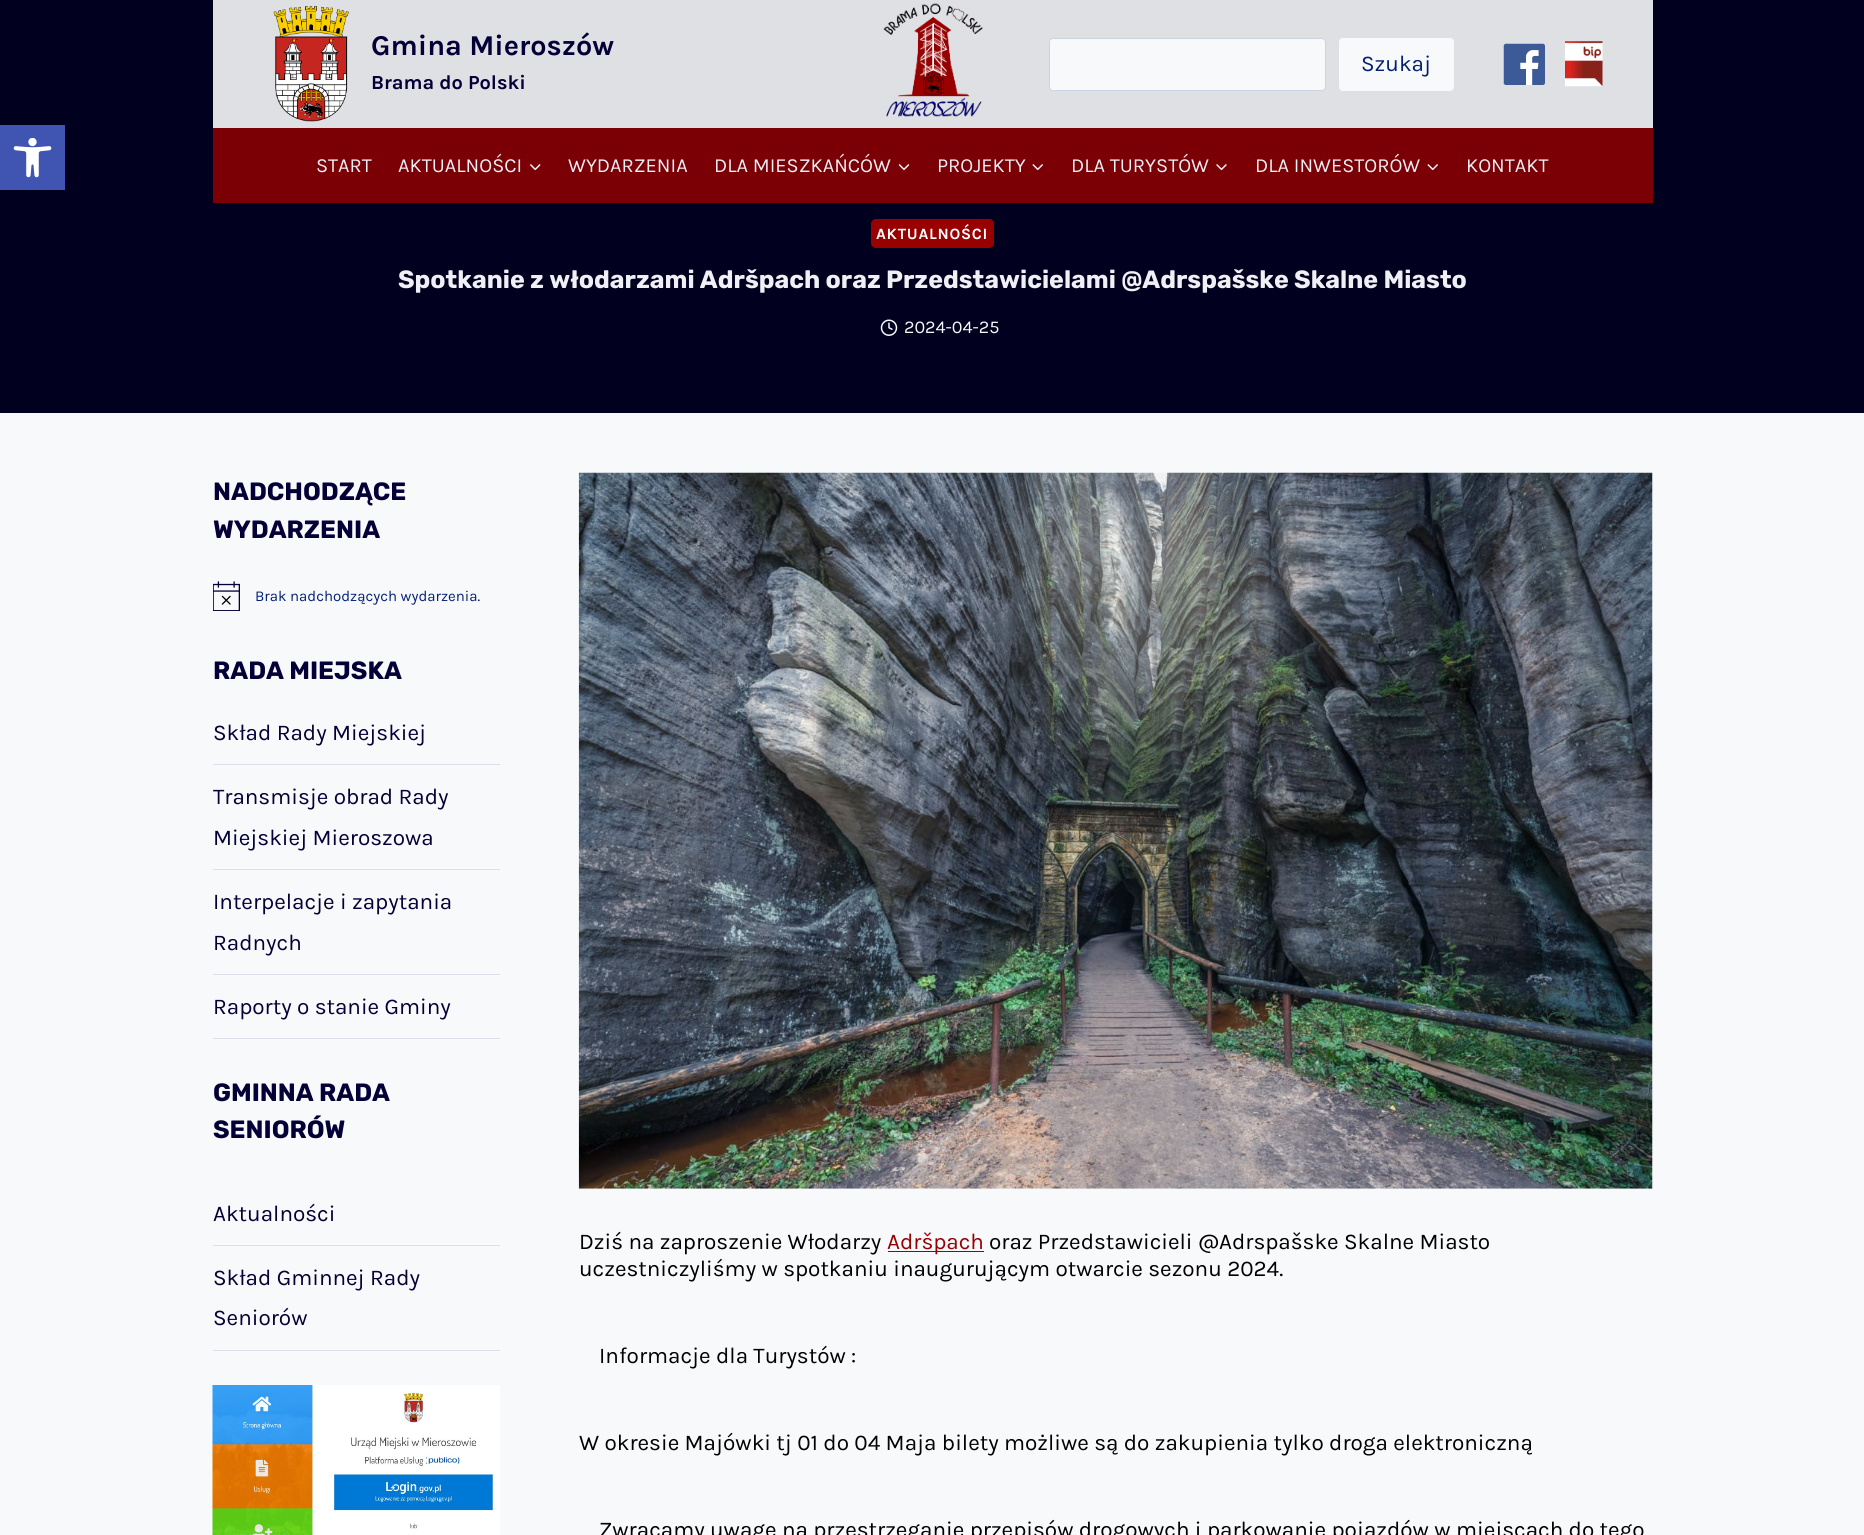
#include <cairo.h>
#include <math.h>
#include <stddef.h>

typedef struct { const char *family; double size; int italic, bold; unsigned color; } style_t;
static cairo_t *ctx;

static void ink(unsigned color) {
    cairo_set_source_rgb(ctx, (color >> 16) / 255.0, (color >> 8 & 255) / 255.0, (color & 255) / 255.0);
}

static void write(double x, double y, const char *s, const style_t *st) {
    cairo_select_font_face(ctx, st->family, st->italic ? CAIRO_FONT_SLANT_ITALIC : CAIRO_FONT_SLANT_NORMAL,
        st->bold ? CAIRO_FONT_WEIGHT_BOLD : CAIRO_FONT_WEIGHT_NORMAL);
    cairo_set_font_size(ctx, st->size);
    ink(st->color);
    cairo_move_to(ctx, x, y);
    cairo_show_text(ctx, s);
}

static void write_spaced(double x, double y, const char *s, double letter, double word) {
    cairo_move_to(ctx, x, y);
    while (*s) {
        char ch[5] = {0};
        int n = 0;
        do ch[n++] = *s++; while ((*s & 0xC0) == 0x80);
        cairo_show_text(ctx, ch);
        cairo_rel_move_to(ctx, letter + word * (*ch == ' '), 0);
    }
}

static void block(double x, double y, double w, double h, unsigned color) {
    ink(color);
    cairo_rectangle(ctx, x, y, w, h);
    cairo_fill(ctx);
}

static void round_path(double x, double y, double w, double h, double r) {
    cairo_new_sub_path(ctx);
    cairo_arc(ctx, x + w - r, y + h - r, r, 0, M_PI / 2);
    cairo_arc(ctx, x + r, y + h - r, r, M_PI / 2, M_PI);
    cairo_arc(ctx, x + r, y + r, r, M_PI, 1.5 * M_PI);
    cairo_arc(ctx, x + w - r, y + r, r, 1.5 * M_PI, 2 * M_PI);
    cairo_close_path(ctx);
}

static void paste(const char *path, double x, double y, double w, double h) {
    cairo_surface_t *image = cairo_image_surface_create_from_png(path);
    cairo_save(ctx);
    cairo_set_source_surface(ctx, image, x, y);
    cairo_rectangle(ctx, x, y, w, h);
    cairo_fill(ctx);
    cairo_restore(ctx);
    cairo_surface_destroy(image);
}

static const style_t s1 = {"Karla", 28.75, 0, 1, 0x040037};
static const style_t s2 = {"Karla", 20, 0, 1, 0x040037};
static const style_t s3 = {"Karla", 22.5, 0, 0, 0x032075};
static const style_t s4 = {"Karla", 20, 0, 0, 0xefeff5};
static const style_t s5 = {"Rubik", 25, 0, 1, 0xefeff5};
static const style_t s6 = {"Karla", 18, 0, 0, 0xf8f9fa};
static const style_t s7 = {"Rubik", 25, 0, 1, 0x040037};
static const style_t s8 = {"Karla", 15, 0, 0, 0x032075};
static const style_t s9 = {"Karla", 22.5, 0, 0, 0x040037};
static const style_t s10 = {"Karla", 22.5, 0, 0, 0x000000};
static const style_t s11 = {"Karla", 22.5, 0, 0, 0x990000};

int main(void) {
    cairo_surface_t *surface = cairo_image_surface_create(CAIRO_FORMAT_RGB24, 1864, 1535);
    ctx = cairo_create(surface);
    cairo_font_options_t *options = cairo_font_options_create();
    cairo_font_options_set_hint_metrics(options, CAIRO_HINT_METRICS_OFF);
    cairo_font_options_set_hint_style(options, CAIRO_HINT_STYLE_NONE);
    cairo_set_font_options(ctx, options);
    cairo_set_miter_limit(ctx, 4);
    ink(0xf8f9fa);
    cairo_paint(ctx);
    block(0, 0, 1864, 413, 0x02001f);
    block(0, 125, 65, 65, 0x4054b2);
    paste("pic1.png", 13, 138, 39, 40);
    block(213, 0, 1440, 128, 0xdfe0e4);
    paste("pic2.png", 273, 6, 76, 116);
    write(371, 55, "Gmina Mieroszów", &s1);
    write(371, 89, "Brama do Polski", &s2);
    paste("pic3.png", 883, 3, 100, 114);
    ink(0xf8f9fa);
    round_path(1049.5, 38.5, 276, 52, 3.5);
    cairo_fill_preserve(ctx);
    ink(0xcbd5e0);
    cairo_set_line_width(ctx, 1);
    cairo_stroke(ctx);
    ink(0xf8f9fa);
    round_path(1339, 38, 115, 53, 4);
    cairo_fill(ctx);
    write(1361, 71, "Szukaj", &s3);
    paste("pic4.png", 1503, 43, 42, 42);
    paste("pic5.png", 1565, 41, 38, 46);
    block(213, 128, 1440, 75, 0x7b0006);
    write(316, 172, "START", &s4);
    write(398, 172, "AKTUALNOŚCI", &s4);
    paste("pic6.png", 530, 164, 11, 7);
    write(568, 172, "WYDARZENIA", &s4);
    write(714, 172, "DLA MIESZKAŃCÓW", &s4);
    paste("pic7.png", 898, 164, 12, 7);
    write(937, 172, "PROJEKTY", &s4);
    paste("pic8.png", 1032, 164, 11, 7);
    write(1071, 172, "DLA TURYSTÓW", &s4);
    paste("pic9.png", 1216, 164, 11, 7);
    write(1255, 172, "DLA INWESTORÓW", &s4);
    paste("pic8.png", 1427, 164, 11, 7);
    write(1466, 172, "KONTAKT", &s4);
    ink(0x990000);
    round_path(871, 219, 123, 29, 5);
    cairo_fill(ctx);
    cairo_select_font_face(ctx, "Karla", CAIRO_FONT_SLANT_NORMAL, CAIRO_FONT_WEIGHT_BOLD);
    cairo_set_font_size(ctx, 15.75);
    ink(0xffffff);
    write_spaced(876, 239, "AKTUALNOŚCI", 0.75, 0);
    write(398, 288, "Spotkanie z włodarzami Adršpach oraz Przedstawicielami @Adrspašske Skalne Miasto", &s5);
    paste("pic10.png", 880, 319, 18, 17);
    write(904, 333, "2024-04-25", &s6);
    write(213, 500, "NADCHODZĄCE", &s7);
    write(213, 538, "WYDARZENIA", &s7);
    paste("pic11.png", 213, 581, 27, 30);
    write(255, 601, "Brak nadchodzących wydarzenia.", &s8);
    write(213, 679, "RADA MIEJSKA", &s7);
    block(213, 764, 287, 1, 0xdeddeb);
    write(213, 740, "Skład Rady Miejskiej", &s9);
    block(213, 869, 287, 1, 0xdeddeb);
    write(213, 804, "Transmisje obrad Rady", &s9);
    write(213, 845, "Miejskiej Mieroszowa", &s9);
    block(213, 974, 287, 1, 0xdeddeb);
    write(213, 909, "Interpelacje i zapytania", &s9);
    write(213, 950, "Radnych", &s9);
    block(213, 1038, 287, 1, 0xdeddeb);
    write(213, 1014, "Raporty o stanie Gminy", &s9);
    write(213, 1101, "GMINNA RADA", &s7);
    write(213, 1138, "SENIORÓW", &s7);
    block(213, 1245, 287, 1, 0xdeddeb);
    write(213, 1221, "Aktualności", &s9);
    block(213, 1350, 287, 1, 0xdeddeb);
    write(213, 1285, "Skład Gminnej Rady", &s9);
    write(213, 1325, "Seniorów", &s9);
    paste("pic12.png", 212, 1385, 288, 150);
    paste("pic13.png", 578, 472, 1075, 717);
    write(579, 1249, "Dziś na zaproszenie Włodarzy", &s10);
    block(888, 1251, 96, 1, 0x990000);
    write(887, 1249, "Adršpach", &s11);
    write(989, 1249, "oraz Przedstawicieli @Adrspašske Skalne Miasto", &s10);
    write(579, 1276, "uczestniczyliśmy w spotkaniu inaugurującym otwarcie sezonu 2024.", &s10);
    write(599, 1363, "Informacje dla Turystów :", &s10);
    write(579, 1450, "W okresie Majówki tj 01 do 04 Maja bilety możliwe są do zakupienia tylko droga elektroniczną", &s10);
    write(599, 1537, "Zwracamy uwagę na przestrzeganie przepisów drogowych i parkowanie pojazdów w miejscach do tego", &s10);
    cairo_surface_write_to_png(surface, "screenshot.png");
    cairo_font_options_destroy(options);
    cairo_destroy(ctx);
    cairo_surface_destroy(surface);
    return 0;
}
